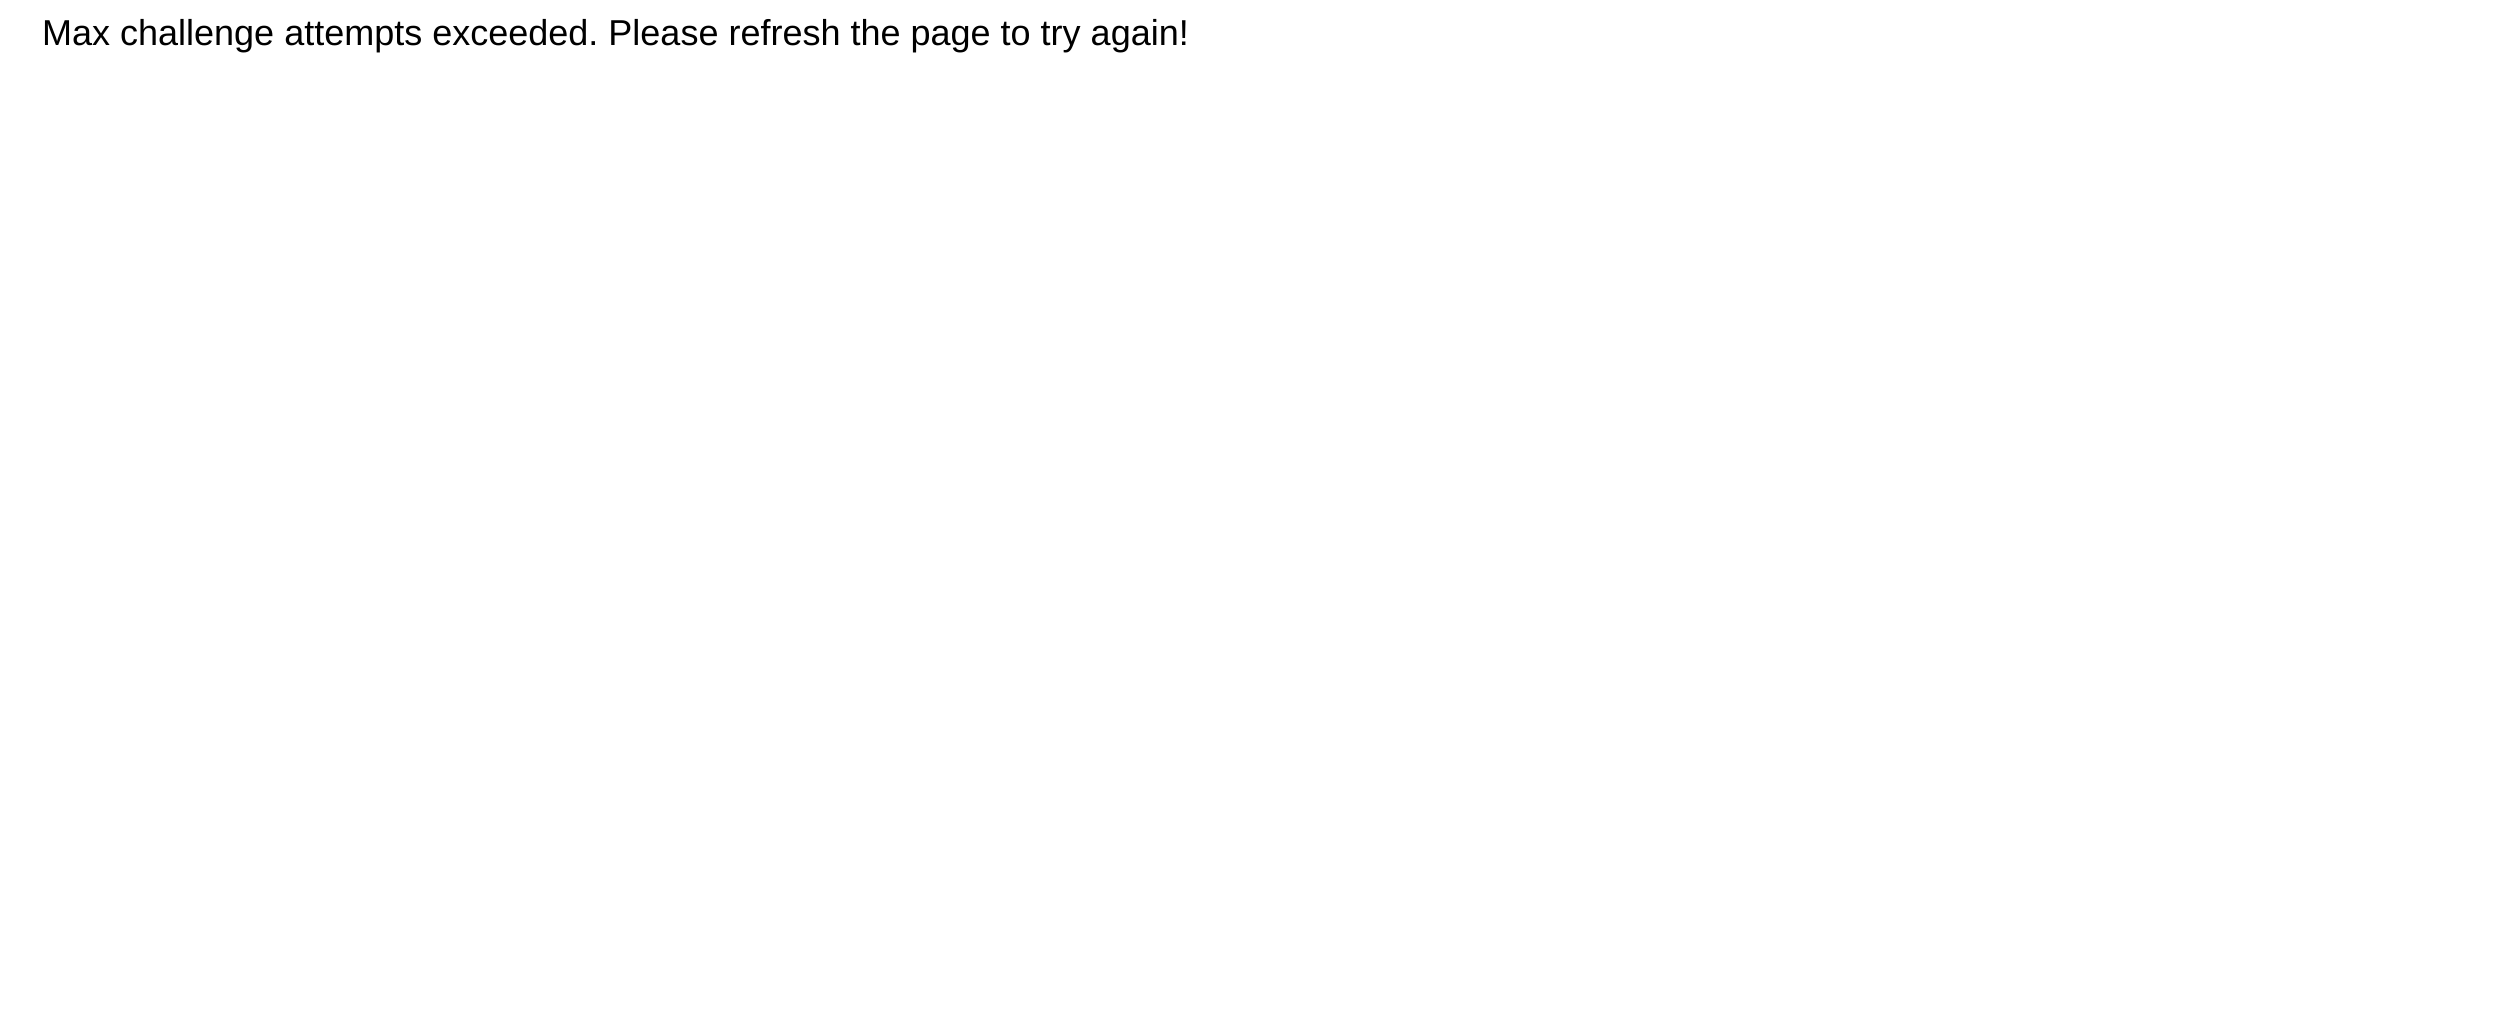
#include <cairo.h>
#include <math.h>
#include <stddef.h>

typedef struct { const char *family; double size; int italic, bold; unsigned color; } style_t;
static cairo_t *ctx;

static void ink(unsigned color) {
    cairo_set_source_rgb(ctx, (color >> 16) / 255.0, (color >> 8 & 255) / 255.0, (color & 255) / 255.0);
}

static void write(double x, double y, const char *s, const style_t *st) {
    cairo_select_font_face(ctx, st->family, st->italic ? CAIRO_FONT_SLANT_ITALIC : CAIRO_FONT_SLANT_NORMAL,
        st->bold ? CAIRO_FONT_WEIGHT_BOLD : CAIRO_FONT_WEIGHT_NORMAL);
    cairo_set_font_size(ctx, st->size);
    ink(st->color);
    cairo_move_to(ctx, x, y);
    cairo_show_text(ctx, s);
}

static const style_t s1 = {"Liberation Sans", 36, 0, 0, 0x000000};

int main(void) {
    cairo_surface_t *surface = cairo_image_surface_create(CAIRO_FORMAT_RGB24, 2518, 1009);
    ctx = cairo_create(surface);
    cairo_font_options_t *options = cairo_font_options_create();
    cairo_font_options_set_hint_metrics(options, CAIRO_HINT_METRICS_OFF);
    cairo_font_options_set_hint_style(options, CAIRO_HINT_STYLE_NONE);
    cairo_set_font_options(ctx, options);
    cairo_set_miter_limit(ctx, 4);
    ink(0xffffff);
    cairo_paint(ctx);
    write(42, 45, "Max challenge attempts exceeded. Please refresh the page to try again!", &s1);
    cairo_surface_write_to_png(surface, "screenshot.png");
    cairo_font_options_destroy(options);
    cairo_destroy(ctx);
    cairo_surface_destroy(surface);
    return 0;
}
